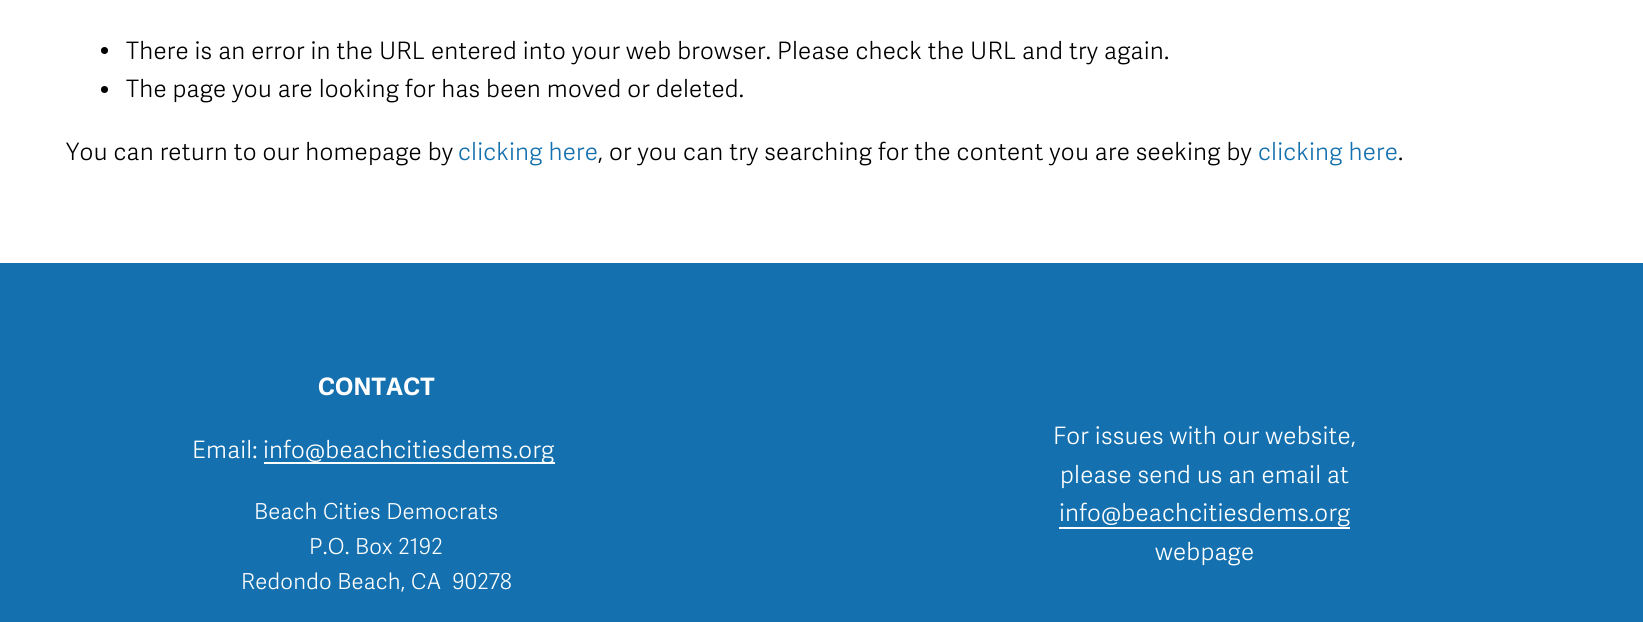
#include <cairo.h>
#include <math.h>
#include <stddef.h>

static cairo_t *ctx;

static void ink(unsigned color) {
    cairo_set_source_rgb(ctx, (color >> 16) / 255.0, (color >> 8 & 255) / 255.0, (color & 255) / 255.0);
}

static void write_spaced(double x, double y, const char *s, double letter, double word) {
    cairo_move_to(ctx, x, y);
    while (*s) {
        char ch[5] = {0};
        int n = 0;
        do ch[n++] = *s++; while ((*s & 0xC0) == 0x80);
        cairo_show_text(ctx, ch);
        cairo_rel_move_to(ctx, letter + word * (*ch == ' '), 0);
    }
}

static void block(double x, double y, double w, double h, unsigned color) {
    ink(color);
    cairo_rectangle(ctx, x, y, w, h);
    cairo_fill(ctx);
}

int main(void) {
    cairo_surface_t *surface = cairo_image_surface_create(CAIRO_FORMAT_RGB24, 1643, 622);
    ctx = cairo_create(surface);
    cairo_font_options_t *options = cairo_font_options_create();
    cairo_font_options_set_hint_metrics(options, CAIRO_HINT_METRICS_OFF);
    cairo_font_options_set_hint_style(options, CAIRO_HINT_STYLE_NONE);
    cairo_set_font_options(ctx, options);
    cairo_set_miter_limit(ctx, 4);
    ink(0xffffff);
    cairo_paint(ctx);
    ink(0x000000);
    cairo_arc(ctx, 104.5, 50.5, 3.5, 0, 2 * M_PI);
    cairo_fill(ctx);
    cairo_select_font_face(ctx, "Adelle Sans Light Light", CAIRO_FONT_SLANT_NORMAL, CAIRO_FONT_WEIGHT_NORMAL);
    cairo_set_font_size(ctx, 24);
    write_spaced(126, 59, "There is an error in the URL entered into your web browser. Please check the URL and try again.", 0.25, 0);
    cairo_new_path(ctx);
    cairo_arc(ctx, 104.5, 89.5, 3.5, 0, 2 * M_PI);
    cairo_fill(ctx);
    write_spaced(126, 97, "The page you are looking for has been moved or deleted.", 0.25, 0);
    write_spaced(66, 160, "You can return to our homepage by", 0.25, 0);
    ink(0x1470af);
    write_spaced(458, 160, "clicking here", 0.25, 0);
    ink(0x000000);
    write_spaced(598, 160, ", or you can try searching for the content you are seeking by", 0.25, 0);
    ink(0x1470af);
    write_spaced(1258, 160, "clicking here", 0.25, 0);
    ink(0x000000);
    write_spaced(1398, 160, ".", 0.25, 0);
    block(0, 263, 1643, 359, 0x1470af);
    cairo_select_font_face(ctx, "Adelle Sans", CAIRO_FONT_SLANT_NORMAL, CAIRO_FONT_WEIGHT_BOLD);
    ink(0xffffff);
    write_spaced(318, 395, "CONTACT", 0.25, 0);
    cairo_select_font_face(ctx, "Adelle Sans Light Light", CAIRO_FONT_SLANT_NORMAL, CAIRO_FONT_WEIGHT_NORMAL);
    write_spaced(192, 458, "Email:", 0.25, 0);
    block(264, 462, 291, 2, 0xffffff);
    write_spaced(263, 458, "info@beachcitiesdems.org", 0.25, 0);
    cairo_set_font_size(ctx, 22);
    write_spaced(254, 519, "Beach Cities Democrats", 0.25, 0);
    write_spaced(309, 554, "P.O. Box 2192", 0.25, 0);
    write_spaced(241, 589, "Redondo Beach, CA  90278", 0.25, 0);
    cairo_set_font_size(ctx, 24);
    write_spaced(1053, 444, "For issues with our website,", 0.25, 0);
    write_spaced(1060, 483, "please send us an email at", 0.25, 0);
    write_spaced(1059, 521, "info@beachcitiesdems.org", 0.25, 0);
    block(1059, 527, 291, 2, 0xffffff);
    write_spaced(1155, 560, "webpage", 0.25, 0);
    cairo_surface_write_to_png(surface, "screenshot.png");
    cairo_font_options_destroy(options);
    cairo_destroy(ctx);
    cairo_surface_destroy(surface);
    return 0;
}
